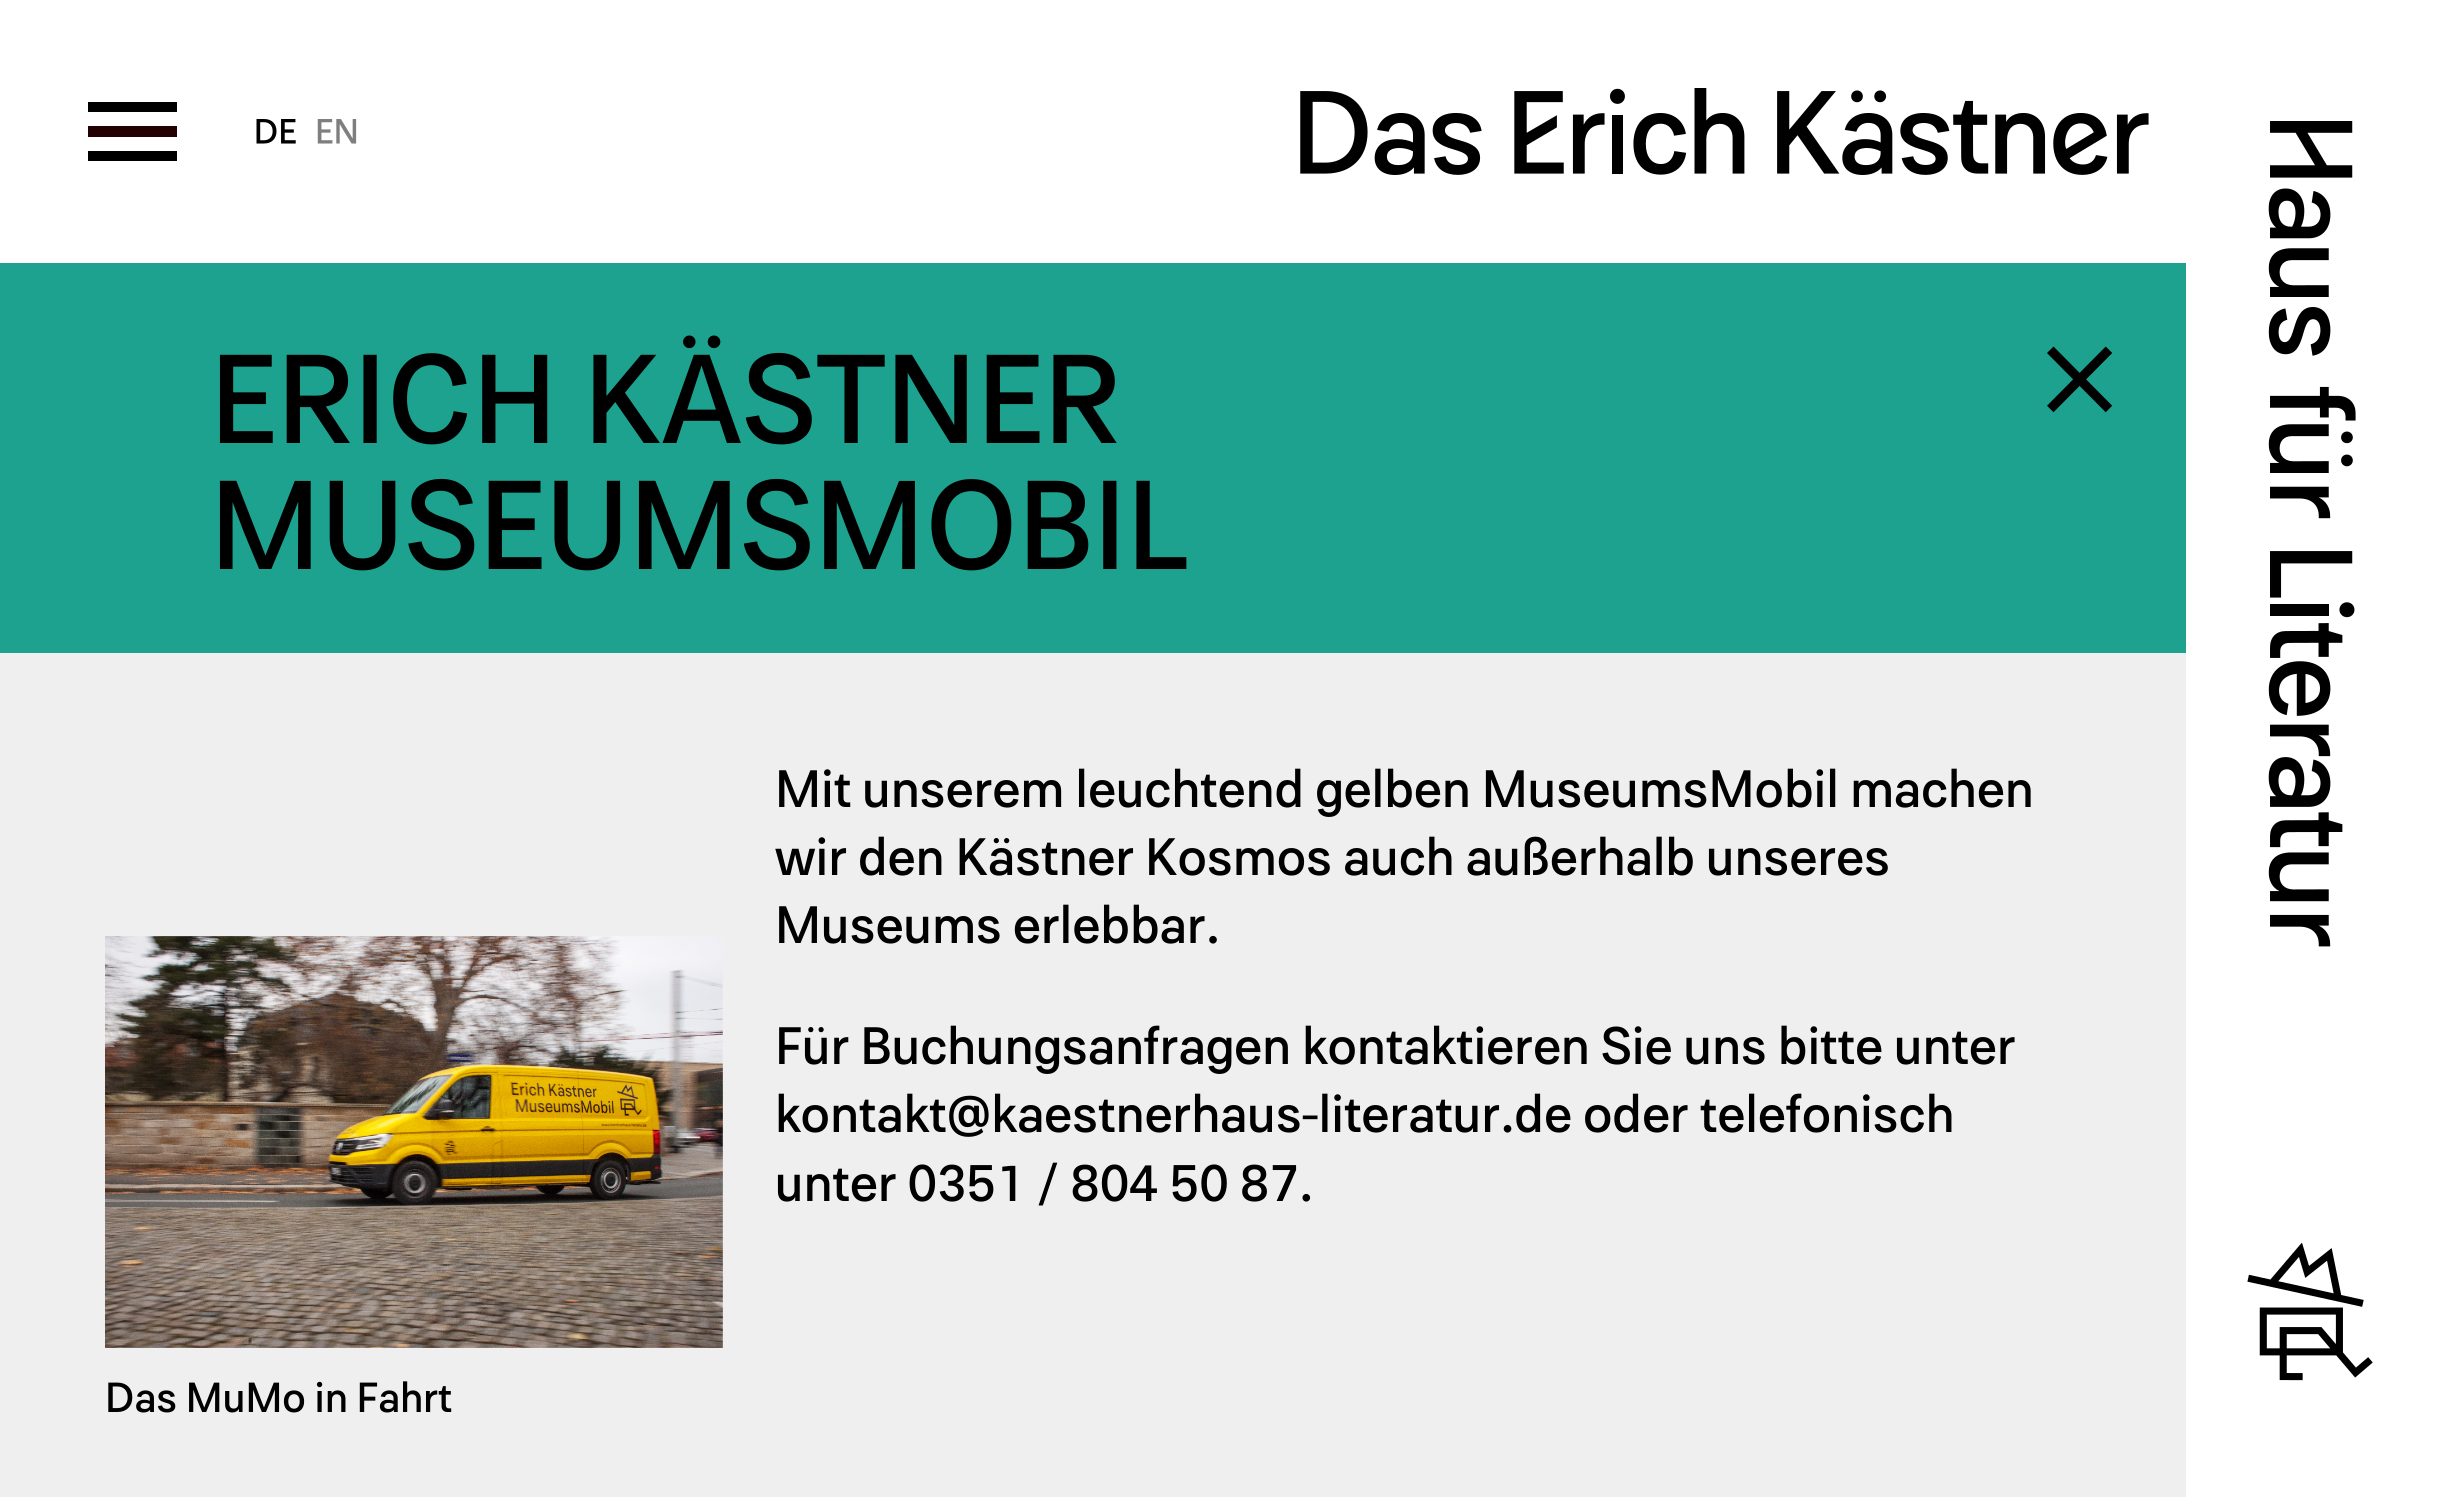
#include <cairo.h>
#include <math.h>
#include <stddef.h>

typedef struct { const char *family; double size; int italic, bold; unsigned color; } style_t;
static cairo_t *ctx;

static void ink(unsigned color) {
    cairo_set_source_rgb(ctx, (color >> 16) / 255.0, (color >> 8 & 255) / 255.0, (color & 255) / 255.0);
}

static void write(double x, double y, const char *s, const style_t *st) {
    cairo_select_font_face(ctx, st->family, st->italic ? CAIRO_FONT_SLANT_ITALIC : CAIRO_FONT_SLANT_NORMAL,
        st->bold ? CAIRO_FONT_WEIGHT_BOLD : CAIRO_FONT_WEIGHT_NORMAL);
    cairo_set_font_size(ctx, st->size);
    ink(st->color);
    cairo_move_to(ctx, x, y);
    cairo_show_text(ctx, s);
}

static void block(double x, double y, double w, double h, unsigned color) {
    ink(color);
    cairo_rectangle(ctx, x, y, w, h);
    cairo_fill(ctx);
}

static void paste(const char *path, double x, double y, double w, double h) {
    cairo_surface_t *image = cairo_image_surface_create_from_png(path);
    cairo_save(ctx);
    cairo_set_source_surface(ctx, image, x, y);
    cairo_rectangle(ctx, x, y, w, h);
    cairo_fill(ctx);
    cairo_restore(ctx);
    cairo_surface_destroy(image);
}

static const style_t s1 = {"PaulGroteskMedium", 126, 0, 0, 0x000000};
static const style_t s2 = {"PaulGroteskMedium", 52.5, 0, 0, 0x000000};
static const style_t s3 = {"PaulGroteskMedium", 42, 0, 0, 0x000000};

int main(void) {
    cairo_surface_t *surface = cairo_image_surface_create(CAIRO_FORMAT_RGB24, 2447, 1497);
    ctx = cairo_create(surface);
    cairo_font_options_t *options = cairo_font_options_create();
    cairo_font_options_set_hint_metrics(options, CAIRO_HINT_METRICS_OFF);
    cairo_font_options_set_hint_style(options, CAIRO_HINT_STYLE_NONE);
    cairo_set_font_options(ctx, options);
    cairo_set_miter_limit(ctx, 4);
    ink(0xefefef);
    cairo_paint(ctx);
    block(0, 0, 2447, 263, 0xffffff);
    block(88, 102, 89, 10, 0x000000);
    block(88, 151, 89, 10, 0x000000);
    block(88, 126, 89, 11, 0x230002);
    paste("pic1.png", 256, 119, 40, 25);
    paste("pic2.png", 317, 119, 40, 25);
    paste("pic3.png", 1300, 88, 849, 87);
    block(2186, 263, 261, 1234, 0xffffff);
    paste("pic4.png", 2268, 121, 88, 826);
    paste("pic5.png", 2247, 1243, 126, 138);
    block(0, 263, 2186, 390, 0x1ca28f);
    write(210, 443, "ERICH KÄSTNER", &s1);
    paste("pic6.png", 2047, 346, 66, 67);
    write(210, 569, "MUSEUMSMOBIL", &s1);
    write(775, 807, "Mit unserem leuchtend gelben MuseumsMobil machen", &s2);
    write(775, 875, "wir den Kästner Kosmos auch außerhalb unseres", &s2);
    write(775, 943, "Museums erlebbar.", &s2);
    write(775, 1064, "Für Buchungsanfragen kontaktieren Sie uns bitte unter", &s2);
    write(775, 1132, "kontakt@kaestnerhaus-literatur.de oder telefonisch", &s2);
    write(775, 1201, "unter 0351 / 804 50 87.", &s2);
    paste("pic7.png", 105, 936, 618, 412);
    write(105, 1412, "Das MuMo in Fahrt", &s3);
    cairo_surface_write_to_png(surface, "screenshot.png");
    cairo_font_options_destroy(options);
    cairo_destroy(ctx);
    cairo_surface_destroy(surface);
    return 0;
}
